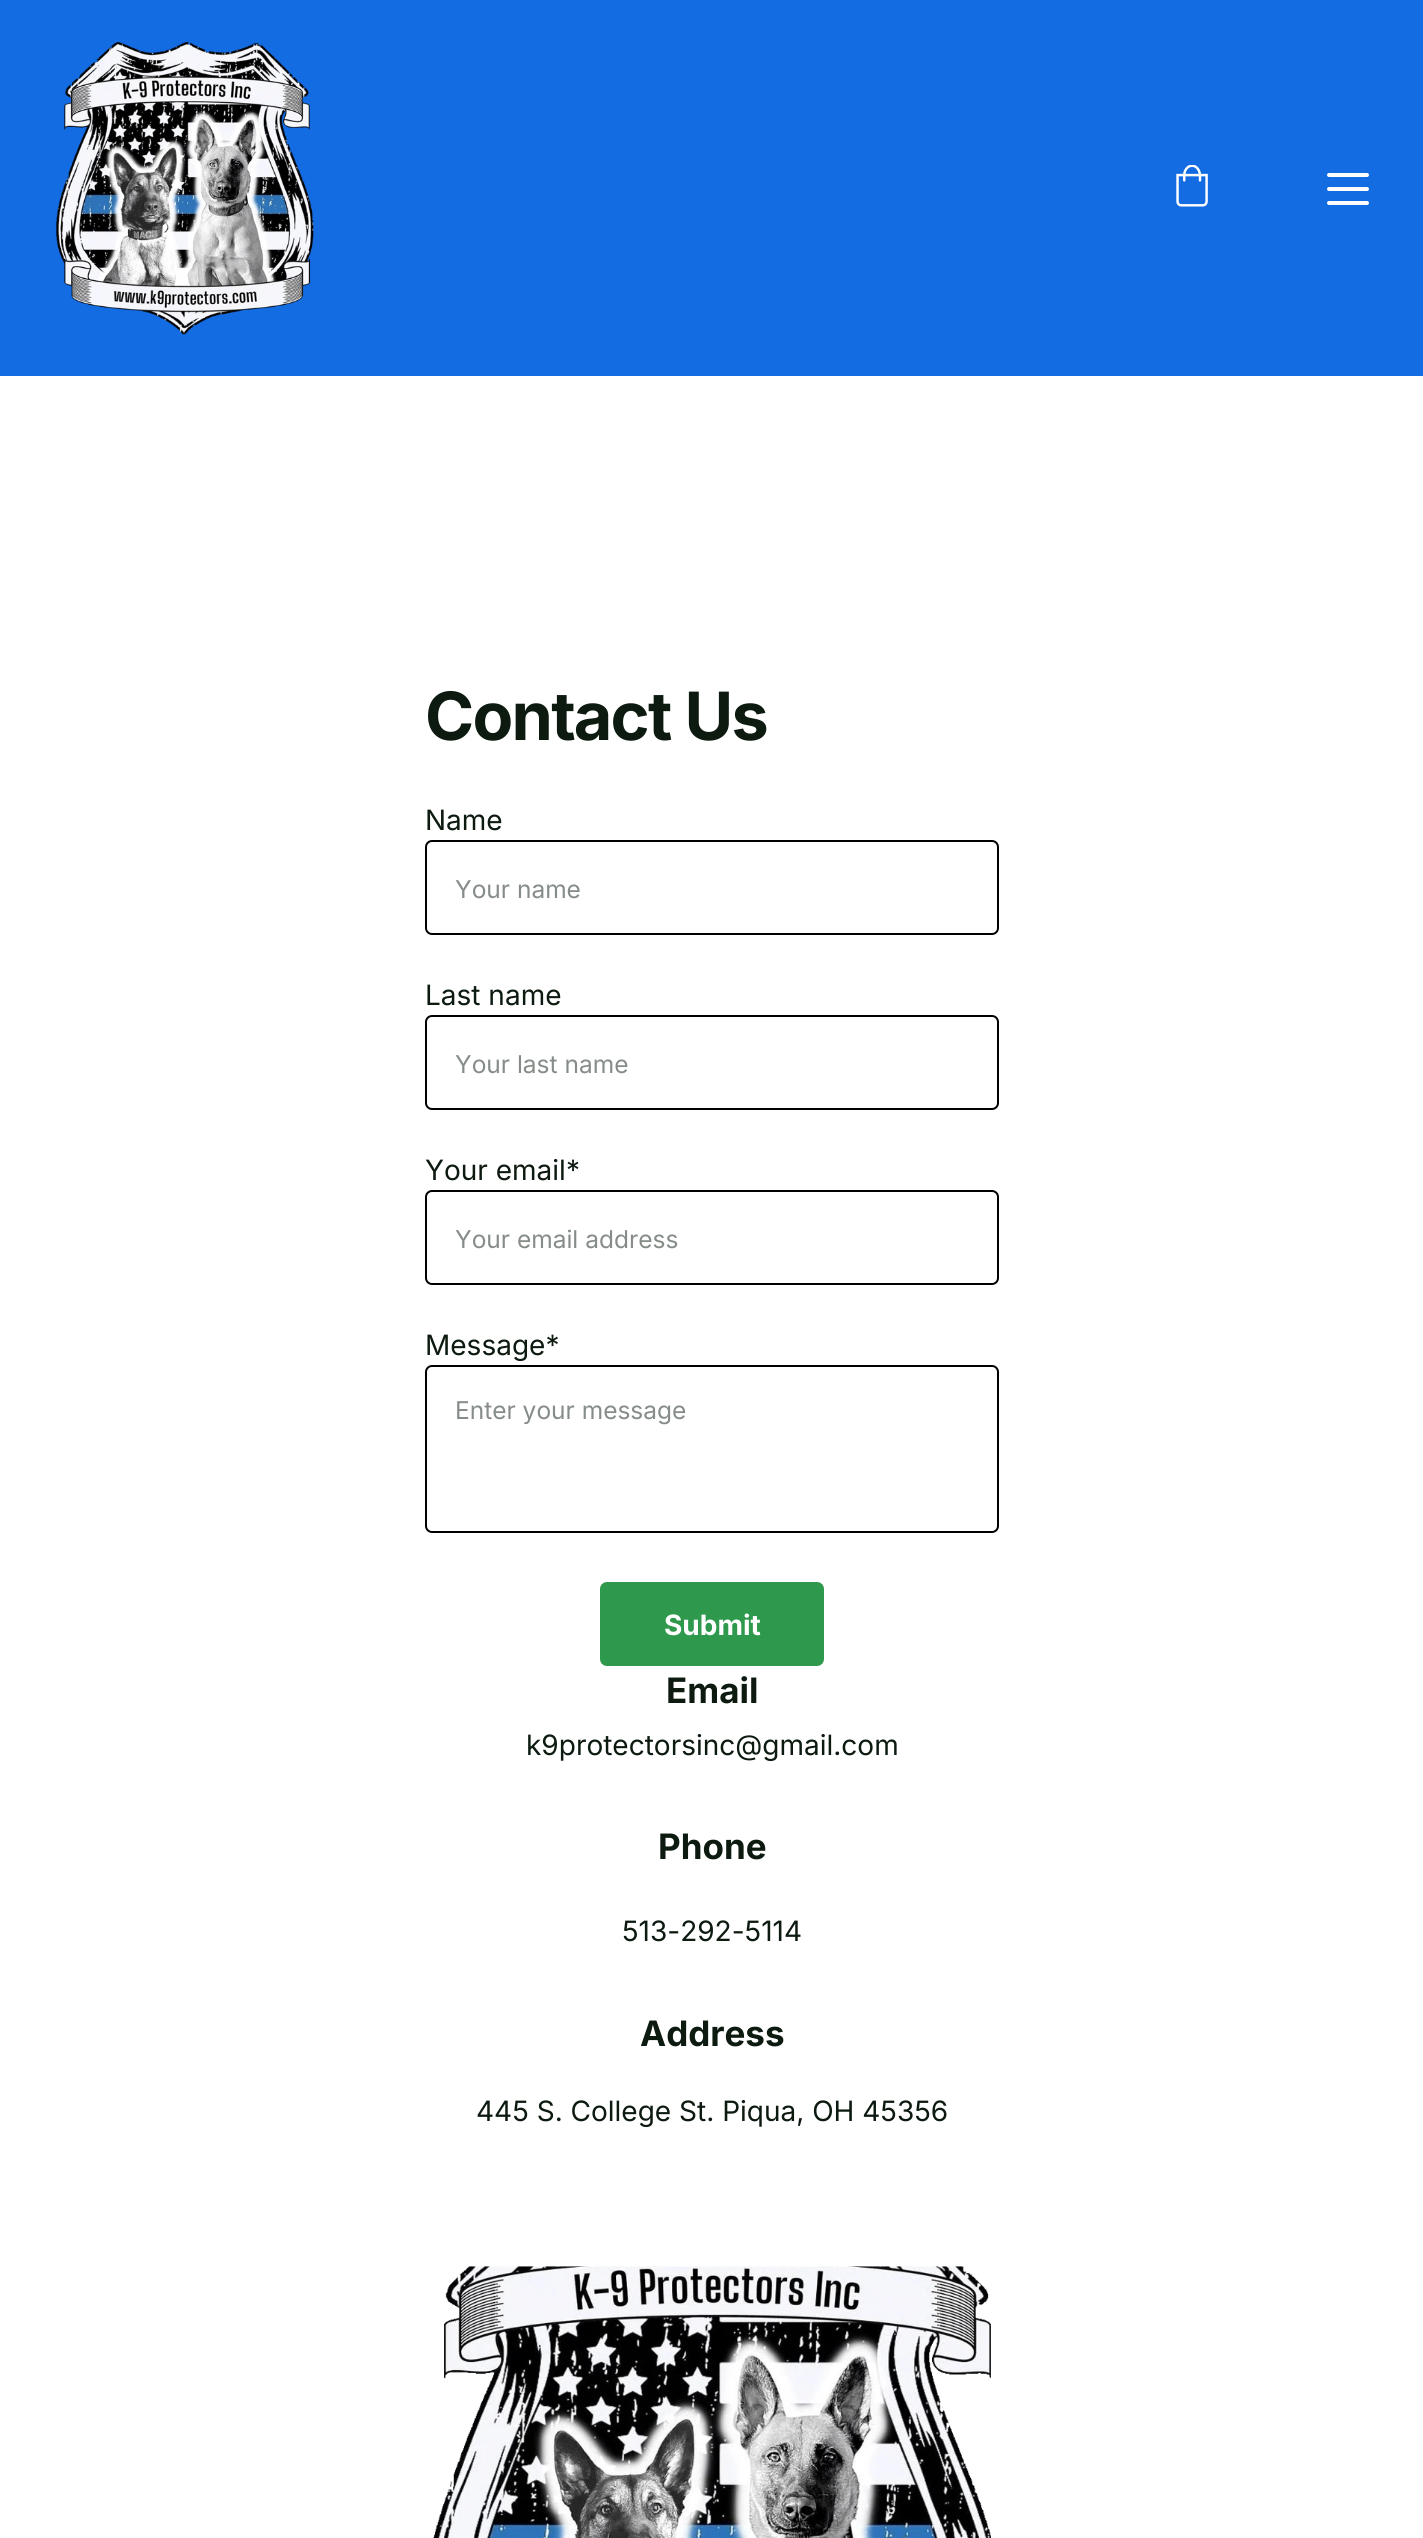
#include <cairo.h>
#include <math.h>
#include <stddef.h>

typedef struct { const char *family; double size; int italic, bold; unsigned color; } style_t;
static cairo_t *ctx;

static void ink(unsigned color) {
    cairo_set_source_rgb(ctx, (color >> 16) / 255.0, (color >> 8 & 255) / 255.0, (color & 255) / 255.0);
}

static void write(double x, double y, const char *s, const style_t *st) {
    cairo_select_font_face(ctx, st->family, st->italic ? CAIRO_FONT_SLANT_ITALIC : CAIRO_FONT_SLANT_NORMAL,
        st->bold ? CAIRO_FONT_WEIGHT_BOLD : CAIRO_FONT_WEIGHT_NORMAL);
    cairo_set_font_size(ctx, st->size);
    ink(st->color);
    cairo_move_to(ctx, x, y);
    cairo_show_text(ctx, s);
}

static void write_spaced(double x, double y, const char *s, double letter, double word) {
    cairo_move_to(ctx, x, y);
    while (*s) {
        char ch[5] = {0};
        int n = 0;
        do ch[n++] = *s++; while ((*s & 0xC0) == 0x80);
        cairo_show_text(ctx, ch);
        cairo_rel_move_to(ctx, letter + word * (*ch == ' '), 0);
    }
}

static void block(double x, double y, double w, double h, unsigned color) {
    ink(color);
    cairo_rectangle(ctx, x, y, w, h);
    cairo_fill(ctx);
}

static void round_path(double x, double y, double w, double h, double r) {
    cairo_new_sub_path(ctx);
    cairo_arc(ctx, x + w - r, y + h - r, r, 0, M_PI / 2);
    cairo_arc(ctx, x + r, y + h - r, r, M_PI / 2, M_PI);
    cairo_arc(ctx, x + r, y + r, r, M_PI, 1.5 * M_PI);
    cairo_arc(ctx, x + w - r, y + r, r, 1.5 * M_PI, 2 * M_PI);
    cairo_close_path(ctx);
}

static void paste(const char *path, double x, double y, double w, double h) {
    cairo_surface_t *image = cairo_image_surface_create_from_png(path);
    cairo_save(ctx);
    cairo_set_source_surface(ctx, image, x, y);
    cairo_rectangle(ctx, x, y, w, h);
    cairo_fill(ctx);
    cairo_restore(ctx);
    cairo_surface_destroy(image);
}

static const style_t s1 = {"Inter", 28, 0, 0, 0x0d1a10};
static const style_t s2 = {"Inter", 24.5, 0, 0, 0x868d88};
static const style_t s3 = {"Inter", 28, 0, 1, 0xffffff};
static const style_t s4 = {"Inter", 35, 0, 1, 0x0d1a10};

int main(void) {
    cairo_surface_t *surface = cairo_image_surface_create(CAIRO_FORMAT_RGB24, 1423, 2538);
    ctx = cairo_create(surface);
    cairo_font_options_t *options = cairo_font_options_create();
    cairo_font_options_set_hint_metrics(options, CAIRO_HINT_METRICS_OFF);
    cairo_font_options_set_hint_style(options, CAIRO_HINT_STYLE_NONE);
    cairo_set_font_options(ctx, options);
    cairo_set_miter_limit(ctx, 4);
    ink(0xffffff);
    cairo_paint(ctx);
    block(0, 0, 1423, 376, 0x146ce3);
    paste("pic1.png", 56, 42, 258, 293);
    paste("pic2.png", 1176, 165, 32, 42);
    ink(0xffffff);
    round_path(1327, 173, 42, 4, 2);
    cairo_fill(ctx);
    round_path(1327, 187, 42, 4, 2);
    cairo_fill(ctx);
    round_path(1327, 201, 42, 4, 2);
    cairo_fill(ctx);
    cairo_select_font_face(ctx, "Inter", CAIRO_FONT_SLANT_NORMAL, CAIRO_FONT_WEIGHT_BOLD);
    cairo_set_font_size(ctx, 66.5);
    ink(0x0d1a10);
    write_spaced(425, 740, "Contact Us", -1.75, 0);
    write(425, 830, "Name", &s1);
    round_path(426, 841, 572, 93, 6);
    ink(0x000000);
    cairo_stroke(ctx);
    write(455, 898, "Your name", &s2);
    write(425, 1005, "Last name", &s1);
    round_path(426, 1016, 572, 93, 6);
    ink(0x000000);
    cairo_stroke(ctx);
    write(455, 1073, "Your last name", &s2);
    write(425, 1180, "Your email*", &s1);
    round_path(426, 1191, 572, 93, 6);
    ink(0x000000);
    cairo_stroke(ctx);
    write(455, 1248, "Your email address", &s2);
    write(425, 1355, "Message*", &s1);
    round_path(426, 1366, 572, 166, 6);
    ink(0x000000);
    cairo_stroke(ctx);
    write(455, 1419, "Enter your message", &s2);
    ink(0x2e994d);
    round_path(600, 1582, 224, 84, 7);
    cairo_fill(ctx);
    write(664, 1635, "Submit", &s3);
    write(666, 1703, "Email", &s4);
    write(526, 1755, "k9protectorsinc@gmail.com", &s1);
    write(658, 1859, "Phone", &s4);
    write(622, 1941, "513-292-5114", &s1);
    write(640, 2046, "Address", &s4);
    write(476, 2121, "445 S. College St. Piqua, OH 45356", &s1);
    paste("pic3.png", 433, 2266, 558, 272);
    cairo_surface_write_to_png(surface, "screenshot.png");
    cairo_font_options_destroy(options);
    cairo_destroy(ctx);
    cairo_surface_destroy(surface);
    return 0;
}
